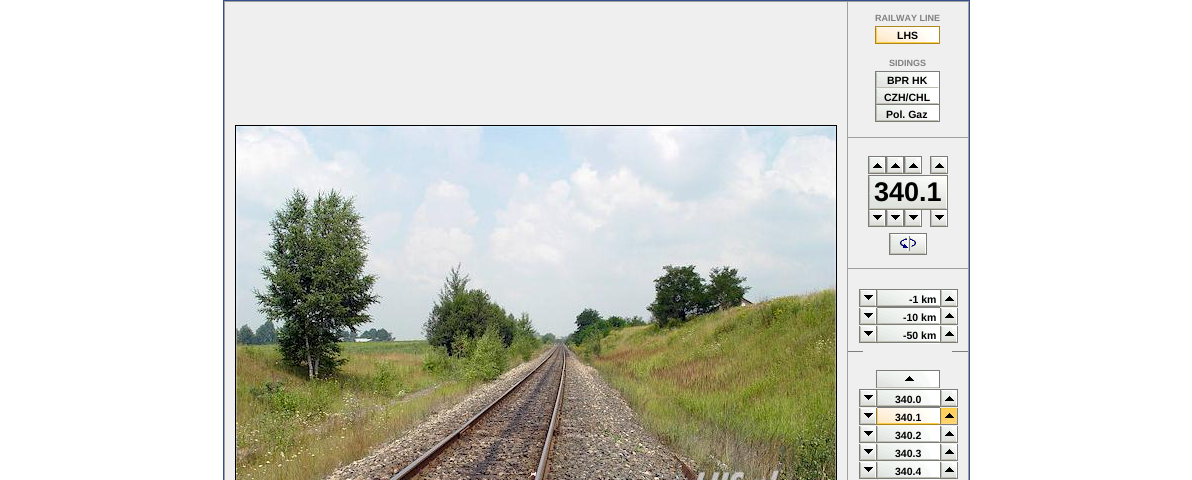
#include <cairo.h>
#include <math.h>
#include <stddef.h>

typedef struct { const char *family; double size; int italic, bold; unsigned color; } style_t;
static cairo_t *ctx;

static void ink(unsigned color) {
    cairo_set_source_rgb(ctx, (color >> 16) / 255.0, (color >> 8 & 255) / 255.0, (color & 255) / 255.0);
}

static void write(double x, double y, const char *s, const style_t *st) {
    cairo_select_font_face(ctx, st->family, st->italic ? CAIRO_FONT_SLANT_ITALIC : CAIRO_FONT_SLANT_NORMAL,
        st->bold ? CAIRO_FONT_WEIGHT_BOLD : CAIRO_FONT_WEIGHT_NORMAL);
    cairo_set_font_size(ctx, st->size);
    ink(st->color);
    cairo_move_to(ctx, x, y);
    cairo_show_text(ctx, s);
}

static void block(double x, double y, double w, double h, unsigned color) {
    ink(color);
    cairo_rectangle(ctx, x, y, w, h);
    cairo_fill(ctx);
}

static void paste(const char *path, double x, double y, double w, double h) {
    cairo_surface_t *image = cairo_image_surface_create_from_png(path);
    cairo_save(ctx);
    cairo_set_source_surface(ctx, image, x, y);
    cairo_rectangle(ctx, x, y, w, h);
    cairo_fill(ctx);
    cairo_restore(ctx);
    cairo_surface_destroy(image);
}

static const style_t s1 = {"Liberation Sans", 9, 0, 1, 0x808080};
static const style_t s2 = {"Liberation Sans", 10.5, 0, 1, 0x000000};
static const style_t s3 = {"Liberation Sans", 27, 0, 1, 0x000000};

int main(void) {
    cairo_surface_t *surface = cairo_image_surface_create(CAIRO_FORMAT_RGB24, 1192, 480);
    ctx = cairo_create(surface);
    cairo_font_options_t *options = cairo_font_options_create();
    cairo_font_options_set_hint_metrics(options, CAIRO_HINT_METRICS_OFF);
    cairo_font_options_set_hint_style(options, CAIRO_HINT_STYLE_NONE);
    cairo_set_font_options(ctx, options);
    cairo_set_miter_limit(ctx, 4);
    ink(0xffffff);
    cairo_paint(ctx);
    block(223, 0, 747, 480, 0x34508c);
    block(224, 1, 745, 479, 0xa0a0a0);
    block(225, 2, 622, 478, 0xefefef);
    cairo_rectangle(ctx, 235.5, 125.5, 601, 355);
    ink(0x000000);
    cairo_set_line_width(ctx, 1);
    cairo_stroke(ctx);
    paste("pic1.png", 236, 126, 600, 354);
    block(848, 2, 120, 135, 0xefefef);
    write(875, 21, "RAILWAY LINE", &s1);
    paste("pic2.png", 875, 26, 65, 18);
    write(897, 39, "LHS", &s2);
    write(889, 66, "SIDINGS", &s1);
    paste("pic3.png", 875, 71, 65, 17);
    write(887, 84, "BPR HK", &s2);
    paste("pic4.png", 875, 88, 65, 17);
    write(884, 101, "CZH/CHL", &s2);
    paste("pic4.png", 875, 105, 65, 17);
    write(886, 118, "Pol. Gaz", &s2);
    block(848, 138, 120, 130, 0xefefef);
    paste("pic5.png", 868, 156, 18, 18);
    paste("pic5.png", 886, 156, 18, 18);
    paste("pic5.png", 904, 156, 18, 18);
    paste("pic5.png", 930, 156, 18, 18);
    paste("pic6.png", 868, 175, 80, 35);
    write(874, 201, "340.1", &s3);
    paste("pic7.png", 868, 210, 18, 17);
    paste("pic7.png", 886, 210, 18, 17);
    paste("pic7.png", 904, 210, 18, 17);
    paste("pic7.png", 930, 210, 18, 17);
    paste("pic8.png", 889, 233, 38, 22);
    block(848, 269, 120, 211, 0xefefef);
    paste("pic9.png", 859, 289, 18, 18);
    paste("pic10.png", 877, 289, 63, 19);
    write(909, 303, "-1 km", &s2);
    paste("pic5.png", 940, 289, 18, 18);
    paste("pic7.png", 859, 308, 18, 17);
    paste("pic11.png", 877, 308, 63, 18);
    write(903, 321, "-10 km", &s2);
    paste("pic12.png", 940, 308, 18, 17);
    paste("pic7.png", 859, 326, 18, 17);
    paste("pic11.png", 877, 326, 63, 18);
    write(903, 339, "-50 km", &s2);
    paste("pic12.png", 940, 326, 18, 17);
    paste("pic13.png", 848, 351, 120, 1);
    paste("pic14.png", 876, 370, 64, 18);
    paste("pic9.png", 859, 389, 18, 18);
    paste("pic10.png", 877, 389, 63, 19);
    write(895, 403, "340.0", &s2);
    paste("pic5.png", 940, 389, 18, 18);
    paste("pic7.png", 859, 408, 18, 17);
    paste("pic15.png", 877, 408, 63, 18);
    write(895, 421, "340.1", &s2);
    paste("pic16.png", 940, 408, 18, 17);
    paste("pic7.png", 859, 426, 18, 17);
    paste("pic11.png", 877, 426, 63, 18);
    write(895, 439, "340.2", &s2);
    paste("pic12.png", 940, 426, 18, 17);
    paste("pic7.png", 859, 444, 18, 17);
    paste("pic11.png", 877, 444, 63, 18);
    write(895, 457, "340.3", &s2);
    paste("pic12.png", 940, 444, 18, 17);
    paste("pic7.png", 859, 462, 18, 17);
    paste("pic11.png", 877, 462, 63, 18);
    write(895, 475, "340.4", &s2);
    paste("pic12.png", 940, 462, 18, 17);
    cairo_surface_write_to_png(surface, "screenshot.png");
    cairo_font_options_destroy(options);
    cairo_destroy(ctx);
    cairo_surface_destroy(surface);
    return 0;
}
